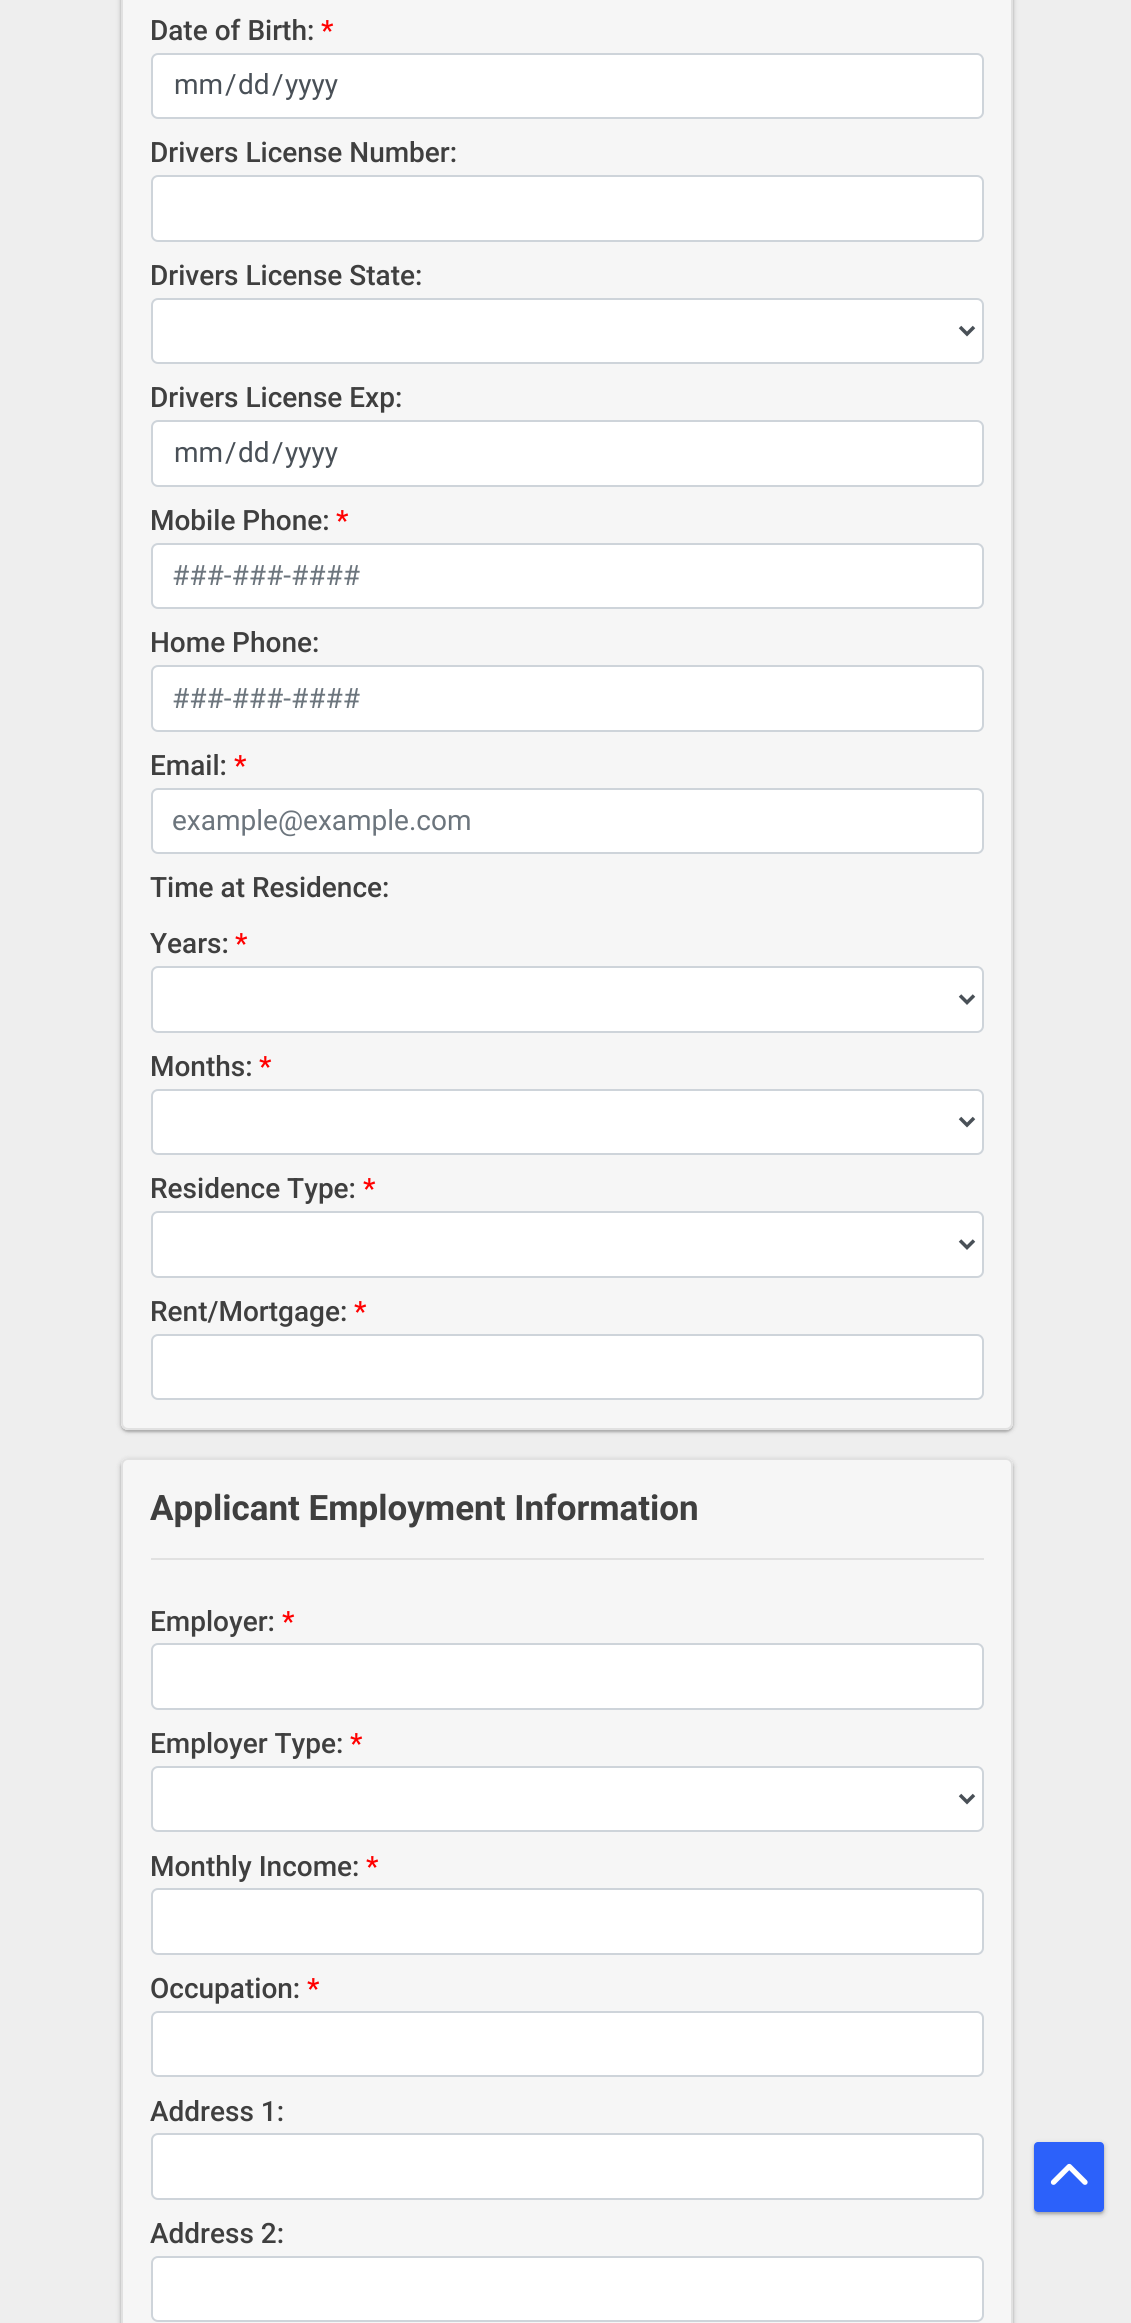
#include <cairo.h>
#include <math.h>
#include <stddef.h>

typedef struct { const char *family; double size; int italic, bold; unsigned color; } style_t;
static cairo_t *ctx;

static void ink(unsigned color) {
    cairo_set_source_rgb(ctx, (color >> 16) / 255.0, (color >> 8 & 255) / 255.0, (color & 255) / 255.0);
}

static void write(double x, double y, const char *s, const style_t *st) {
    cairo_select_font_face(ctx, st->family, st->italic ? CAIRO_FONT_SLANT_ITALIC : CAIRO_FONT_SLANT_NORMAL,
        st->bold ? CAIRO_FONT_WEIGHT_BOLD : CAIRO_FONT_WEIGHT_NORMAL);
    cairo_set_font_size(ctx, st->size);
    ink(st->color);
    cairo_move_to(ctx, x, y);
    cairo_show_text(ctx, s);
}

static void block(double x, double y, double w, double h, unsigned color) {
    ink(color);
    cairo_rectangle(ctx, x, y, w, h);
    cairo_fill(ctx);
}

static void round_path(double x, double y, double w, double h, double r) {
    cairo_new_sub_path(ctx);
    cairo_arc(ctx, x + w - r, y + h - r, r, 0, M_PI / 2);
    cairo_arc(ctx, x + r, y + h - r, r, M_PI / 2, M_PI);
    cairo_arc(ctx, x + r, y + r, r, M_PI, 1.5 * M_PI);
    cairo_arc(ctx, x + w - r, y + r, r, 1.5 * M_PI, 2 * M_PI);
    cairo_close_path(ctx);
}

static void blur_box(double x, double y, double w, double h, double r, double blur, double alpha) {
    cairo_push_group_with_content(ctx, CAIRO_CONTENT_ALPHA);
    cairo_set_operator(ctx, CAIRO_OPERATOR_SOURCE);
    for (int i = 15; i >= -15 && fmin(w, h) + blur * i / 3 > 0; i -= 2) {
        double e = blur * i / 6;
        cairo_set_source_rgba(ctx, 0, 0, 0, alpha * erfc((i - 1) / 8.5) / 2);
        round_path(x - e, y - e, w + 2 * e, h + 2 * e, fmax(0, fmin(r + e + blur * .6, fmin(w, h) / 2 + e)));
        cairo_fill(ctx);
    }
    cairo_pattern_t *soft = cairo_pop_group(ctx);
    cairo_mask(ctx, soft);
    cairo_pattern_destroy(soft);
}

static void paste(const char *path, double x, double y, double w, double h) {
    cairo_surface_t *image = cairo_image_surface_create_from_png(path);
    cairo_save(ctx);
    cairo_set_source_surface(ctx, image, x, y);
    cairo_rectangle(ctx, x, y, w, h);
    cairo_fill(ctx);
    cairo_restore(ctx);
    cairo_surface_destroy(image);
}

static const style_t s1 = {"Roboto Medium", 28, 0, 0, 0x3f3f3f};
static const style_t s2 = {"Roboto Medium", 28, 0, 0, 0xff0000};
static const style_t s3 = {"Roboto", 28, 0, 0, 0x495057};
static const style_t s4 = {"Roboto", 28, 0, 0, 0x6c757d};
static const style_t s5 = {"Roboto", 35, 0, 1, 0x3f3f3f};

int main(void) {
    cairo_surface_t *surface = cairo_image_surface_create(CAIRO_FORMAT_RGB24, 1131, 2323);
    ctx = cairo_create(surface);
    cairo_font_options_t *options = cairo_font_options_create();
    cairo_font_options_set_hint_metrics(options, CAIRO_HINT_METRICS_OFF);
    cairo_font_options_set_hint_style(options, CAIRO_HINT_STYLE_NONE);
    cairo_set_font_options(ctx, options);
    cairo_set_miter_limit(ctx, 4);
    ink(0xeeeeee);
    cairo_paint(ctx);
    cairo_save(ctx);
    cairo_set_fill_rule(ctx, CAIRO_FILL_RULE_EVEN_ODD);
    cairo_new_path(ctx);
    cairo_move_to(ctx, 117, 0);
    cairo_line_to(ctx, 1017, 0);
    cairo_line_to(ctx, 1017, 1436);
    cairo_line_to(ctx, 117, 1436);
    cairo_close_path(ctx);
    cairo_move_to(ctx, 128, -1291);
    cairo_line_to(ctx, 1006, -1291);
    cairo_curve_to(ctx, 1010, -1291, 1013, -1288, 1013, -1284);
    cairo_line_to(ctx, 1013, 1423);
    cairo_curve_to(ctx, 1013, 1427, 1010, 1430, 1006, 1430);
    cairo_line_to(ctx, 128, 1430);
    cairo_curve_to(ctx, 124, 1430, 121, 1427, 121, 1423);
    cairo_line_to(ctx, 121, -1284);
    cairo_curve_to(ctx, 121, -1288, 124, -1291, 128, -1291);
    cairo_close_path(ctx);
    cairo_clip(ctx);
    ink(0x000000);
    blur_box(121, -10, 892, 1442, 7, 1, 0.2);
    cairo_restore(ctx);
    cairo_save(ctx);
    cairo_set_fill_rule(ctx, CAIRO_FILL_RULE_EVEN_ODD);
    cairo_new_path(ctx);
    cairo_move_to(ctx, 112, 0);
    cairo_line_to(ctx, 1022, 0);
    cairo_line_to(ctx, 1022, 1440);
    cairo_line_to(ctx, 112, 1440);
    cairo_close_path(ctx);
    cairo_move_to(ctx, 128, -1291);
    cairo_line_to(ctx, 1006, -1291);
    cairo_curve_to(ctx, 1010, -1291, 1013, -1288, 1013, -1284);
    cairo_line_to(ctx, 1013, 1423);
    cairo_curve_to(ctx, 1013, 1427, 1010, 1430, 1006, 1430);
    cairo_line_to(ctx, 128, 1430);
    cairo_curve_to(ctx, 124, 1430, 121, 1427, 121, 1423);
    cairo_line_to(ctx, 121, -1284);
    cairo_curve_to(ctx, 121, -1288, 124, -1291, 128, -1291);
    cairo_close_path(ctx);
    cairo_clip(ctx);
    ink(0x000000);
    blur_box(119, -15, 896, 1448, 9, 2, 0.1);
    cairo_restore(ctx);
    cairo_set_source_rgba(ctx, 0.984, 0.984, 0.984, 0.6);
    round_path(121, -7, 892, 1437, 7);
    cairo_fill(ctx);
    round_path(122, -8, 890, 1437, 6);
    cairo_set_source_rgba(ctx, 0.863, 0.863, 0.863, 0.8);
    cairo_stroke(ctx);
    write(150, 40, "Date of Birth:", &s1);
    write(321, 40, "*", &s2);
    ink(0xffffff);
    round_path(152, 54, 831, 64, 6);
    cairo_fill_preserve(ctx);
    ink(0xced4da);
    cairo_stroke(ctx);
    write(174, 94, "mm", &s3);
    write(225, 94, "/", &s3);
    write(238, 94, "dd", &s3);
    write(272, 94, "/", &s3);
    write(285, 94, "yyyy", &s3);
    write(150, 162, "Drivers License Number:", &s1);
    ink(0xffffff);
    round_path(152, 176, 831, 65, 6);
    cairo_fill_preserve(ctx);
    ink(0xced4da);
    cairo_stroke(ctx);
    write(150, 285, "Drivers License State:", &s1);
    ink(0xffffff);
    round_path(152, 299, 831, 64, 6);
    cairo_fill_preserve(ctx);
    ink(0xced4da);
    cairo_stroke(ctx);
    cairo_new_path(ctx);
    cairo_move_to(ctx, 960, 327);
    cairo_line_to(ctx, 967, 334);
    cairo_line_to(ctx, 974, 327);
    ink(0x495057);
    cairo_set_line_width(ctx, 3.5);
    cairo_stroke(ctx);
    write(150, 407, "Drivers License Exp:", &s1);
    ink(0xffffff);
    round_path(152, 421, 831, 65, 6);
    cairo_fill_preserve(ctx);
    ink(0xced4da);
    cairo_set_line_width(ctx, 2);
    cairo_stroke(ctx);
    write(174, 462, "mm", &s3);
    write(225, 462, "/", &s3);
    write(238, 462, "dd", &s3);
    write(272, 462, "/", &s3);
    write(285, 462, "yyyy", &s3);
    write(150, 530, "Mobile Phone:", &s1);
    write(336, 530, "*", &s2);
    ink(0xffffff);
    round_path(152, 544, 831, 64, 6);
    cairo_fill_preserve(ctx);
    ink(0xced4da);
    cairo_stroke(ctx);
    write(172, 585, "###-###-####", &s4);
    write(150, 652, "Home Phone:", &s1);
    ink(0xffffff);
    round_path(152, 666, 831, 65, 6);
    cairo_fill_preserve(ctx);
    ink(0xced4da);
    cairo_stroke(ctx);
    write(172, 708, "###-###-####", &s4);
    write(150, 775, "Email:", &s1);
    write(234, 775, "*", &s2);
    ink(0xffffff);
    round_path(152, 789, 831, 64, 6);
    cairo_fill_preserve(ctx);
    ink(0xced4da);
    cairo_stroke(ctx);
    write(172, 830, "example@example.com", &s4);
    write(150, 897, "Time at Residence:", &s1);
    write(150, 953, "Years:", &s1);
    write(235, 953, "*", &s2);
    ink(0xffffff);
    round_path(152, 967, 831, 65, 6);
    cairo_fill_preserve(ctx);
    ink(0xced4da);
    cairo_stroke(ctx);
    cairo_new_path(ctx);
    cairo_move_to(ctx, 960, 995.5);
    cairo_line_to(ctx, 967, 1002.5);
    cairo_line_to(ctx, 974, 995.5);
    ink(0x495057);
    cairo_set_line_width(ctx, 3.5);
    cairo_stroke(ctx);
    write(150, 1076, "Months:", &s1);
    write(259, 1076, "*", &s2);
    ink(0xffffff);
    round_path(152, 1090, 831, 64, 6);
    cairo_fill_preserve(ctx);
    ink(0xced4da);
    cairo_set_line_width(ctx, 2);
    cairo_stroke(ctx);
    cairo_new_path(ctx);
    cairo_move_to(ctx, 960, 1118);
    cairo_line_to(ctx, 967, 1125);
    cairo_line_to(ctx, 974, 1118);
    ink(0x495057);
    cairo_set_line_width(ctx, 3.5);
    cairo_stroke(ctx);
    write(150, 1198, "Residence Type:", &s1);
    write(363, 1198, "*", &s2);
    ink(0xffffff);
    round_path(152, 1212, 831, 65, 6);
    cairo_fill_preserve(ctx);
    ink(0xced4da);
    cairo_set_line_width(ctx, 2);
    cairo_stroke(ctx);
    cairo_new_path(ctx);
    cairo_move_to(ctx, 960, 1240.5);
    cairo_line_to(ctx, 967, 1247.5);
    cairo_line_to(ctx, 974, 1240.5);
    ink(0x495057);
    cairo_set_line_width(ctx, 3.5);
    cairo_stroke(ctx);
    write(150, 1321, "Rent/Mortgage:", &s1);
    write(354, 1321, "*", &s2);
    ink(0xffffff);
    round_path(152, 1335, 831, 64, 6);
    cairo_fill_preserve(ctx);
    ink(0xced4da);
    cairo_set_line_width(ctx, 2);
    cairo_stroke(ctx);
    cairo_save(ctx);
    cairo_set_fill_rule(ctx, CAIRO_FILL_RULE_EVEN_ODD);
    cairo_new_path(ctx);
    cairo_move_to(ctx, 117, 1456);
    cairo_line_to(ctx, 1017, 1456);
    cairo_line_to(ctx, 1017, 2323);
    cairo_line_to(ctx, 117, 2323);
    cairo_close_path(ctx);
    cairo_move_to(ctx, 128, 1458);
    cairo_line_to(ctx, 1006, 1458);
    cairo_curve_to(ctx, 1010, 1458, 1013, 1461, 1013, 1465);
    cairo_line_to(ctx, 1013, 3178);
    cairo_curve_to(ctx, 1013, 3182, 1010, 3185, 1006, 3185);
    cairo_line_to(ctx, 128, 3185);
    cairo_curve_to(ctx, 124, 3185, 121, 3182, 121, 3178);
    cairo_line_to(ctx, 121, 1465);
    cairo_curve_to(ctx, 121, 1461, 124, 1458, 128, 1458);
    cairo_close_path(ctx);
    cairo_clip(ctx);
    ink(0x000000);
    blur_box(121, 1460, 892, 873, 7, 1, 0.2);
    cairo_restore(ctx);
    cairo_save(ctx);
    cairo_set_fill_rule(ctx, CAIRO_FILL_RULE_EVEN_ODD);
    cairo_new_path(ctx);
    cairo_move_to(ctx, 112, 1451);
    cairo_line_to(ctx, 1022, 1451);
    cairo_line_to(ctx, 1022, 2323);
    cairo_line_to(ctx, 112, 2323);
    cairo_close_path(ctx);
    cairo_move_to(ctx, 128, 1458);
    cairo_line_to(ctx, 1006, 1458);
    cairo_curve_to(ctx, 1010, 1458, 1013, 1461, 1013, 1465);
    cairo_line_to(ctx, 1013, 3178);
    cairo_curve_to(ctx, 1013, 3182, 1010, 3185, 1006, 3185);
    cairo_line_to(ctx, 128, 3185);
    cairo_curve_to(ctx, 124, 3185, 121, 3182, 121, 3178);
    cairo_line_to(ctx, 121, 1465);
    cairo_curve_to(ctx, 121, 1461, 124, 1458, 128, 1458);
    cairo_close_path(ctx);
    cairo_clip(ctx);
    ink(0x000000);
    blur_box(119, 1458, 896, 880, 9, 2, 0.1);
    cairo_restore(ctx);
    cairo_set_source_rgba(ctx, 0.984, 0.984, 0.984, 0.6);
    round_path(121, 1458, 892, 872, 7);
    cairo_fill(ctx);
    round_path(122, 1459, 890, 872, 6);
    cairo_set_source_rgba(ctx, 0.863, 0.863, 0.863, 0.8);
    cairo_stroke(ctx);
    write(150, 1520, "Applicant Employment Information", &s5);
    block(151, 1558, 833, 2, 0xe1e1e1);
    write(150, 1631, "Employer:", &s1);
    write(282, 1631, "*", &s2);
    ink(0xffffff);
    round_path(152, 1644, 831, 65, 6);
    cairo_fill_preserve(ctx);
    ink(0xced4da);
    cairo_stroke(ctx);
    write(150, 1753, "Employer Type:", &s1);
    write(350, 1753, "*", &s2);
    ink(0xffffff);
    round_path(152, 1767, 831, 64, 6);
    cairo_fill_preserve(ctx);
    ink(0xced4da);
    cairo_stroke(ctx);
    cairo_new_path(ctx);
    cairo_move_to(ctx, 960, 1795);
    cairo_line_to(ctx, 967, 1802);
    cairo_line_to(ctx, 974, 1795);
    ink(0x495057);
    cairo_set_line_width(ctx, 3.5);
    cairo_stroke(ctx);
    write(150, 1876, "Monthly Income:", &s1);
    write(366, 1876, "*", &s2);
    ink(0xffffff);
    round_path(152, 1889, 831, 65, 6);
    cairo_fill_preserve(ctx);
    ink(0xced4da);
    cairo_set_line_width(ctx, 2);
    cairo_stroke(ctx);
    write(150, 1998, "Occupation:", &s1);
    write(307, 1998, "*", &s2);
    ink(0xffffff);
    round_path(152, 2012, 831, 64, 6);
    cairo_fill_preserve(ctx);
    ink(0xced4da);
    cairo_stroke(ctx);
    write(150, 2121, "Address 1:", &s1);
    ink(0xffffff);
    round_path(152, 2134, 831, 65, 6);
    cairo_fill_preserve(ctx);
    ink(0xced4da);
    cairo_stroke(ctx);
    write(150, 2243, "Address 2:", &s1);
    ink(0xffffff);
    round_path(152, 2257, 831, 64, 6);
    cairo_fill_preserve(ctx);
    ink(0xced4da);
    cairo_stroke(ctx);
    cairo_save(ctx);
    cairo_set_fill_rule(ctx, CAIRO_FILL_RULE_EVEN_ODD);
    cairo_new_path(ctx);
    cairo_move_to(ctx, 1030, 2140);
    cairo_line_to(ctx, 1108, 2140);
    cairo_line_to(ctx, 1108, 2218);
    cairo_line_to(ctx, 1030, 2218);
    cairo_close_path(ctx);
    cairo_move_to(ctx, 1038, 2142);
    cairo_line_to(ctx, 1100, 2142);
    cairo_curve_to(ctx, 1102, 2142, 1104, 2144, 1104, 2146);
    cairo_line_to(ctx, 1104, 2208);
    cairo_curve_to(ctx, 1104, 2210, 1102, 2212, 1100, 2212);
    cairo_line_to(ctx, 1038, 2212);
    cairo_curve_to(ctx, 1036, 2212, 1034, 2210, 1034, 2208);
    cairo_line_to(ctx, 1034, 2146);
    cairo_curve_to(ctx, 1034, 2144, 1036, 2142, 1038, 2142);
    cairo_close_path(ctx);
    cairo_clip(ctx);
    ink(0x000000);
    blur_box(1034, 2144, 70, 70, 4, 1, 0.2);
    cairo_restore(ctx);
    cairo_save(ctx);
    cairo_set_fill_rule(ctx, CAIRO_FILL_RULE_EVEN_ODD);
    cairo_new_path(ctx);
    cairo_move_to(ctx, 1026, 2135);
    cairo_line_to(ctx, 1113, 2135);
    cairo_line_to(ctx, 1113, 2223);
    cairo_line_to(ctx, 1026, 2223);
    cairo_close_path(ctx);
    cairo_move_to(ctx, 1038, 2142);
    cairo_line_to(ctx, 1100, 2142);
    cairo_curve_to(ctx, 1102, 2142, 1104, 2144, 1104, 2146);
    cairo_line_to(ctx, 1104, 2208);
    cairo_curve_to(ctx, 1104, 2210, 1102, 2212, 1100, 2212);
    cairo_line_to(ctx, 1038, 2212);
    cairo_curve_to(ctx, 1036, 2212, 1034, 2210, 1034, 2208);
    cairo_line_to(ctx, 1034, 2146);
    cairo_curve_to(ctx, 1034, 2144, 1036, 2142, 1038, 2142);
    cairo_close_path(ctx);
    cairo_clip(ctx);
    ink(0x000000);
    blur_box(1033, 2142, 73, 74, 5, 2, 0.1);
    cairo_restore(ctx);
    cairo_set_source_rgba(ctx, 0.094, 0.325, 0.988, 0.9);
    round_path(1034, 2142, 70, 70, 4);
    cairo_fill(ctx);
    paste("pic1.png", 1050, 2163, 38, 22);
    cairo_surface_write_to_png(surface, "screenshot.png");
    cairo_font_options_destroy(options);
    cairo_destroy(ctx);
    cairo_surface_destroy(surface);
    return 0;
}
